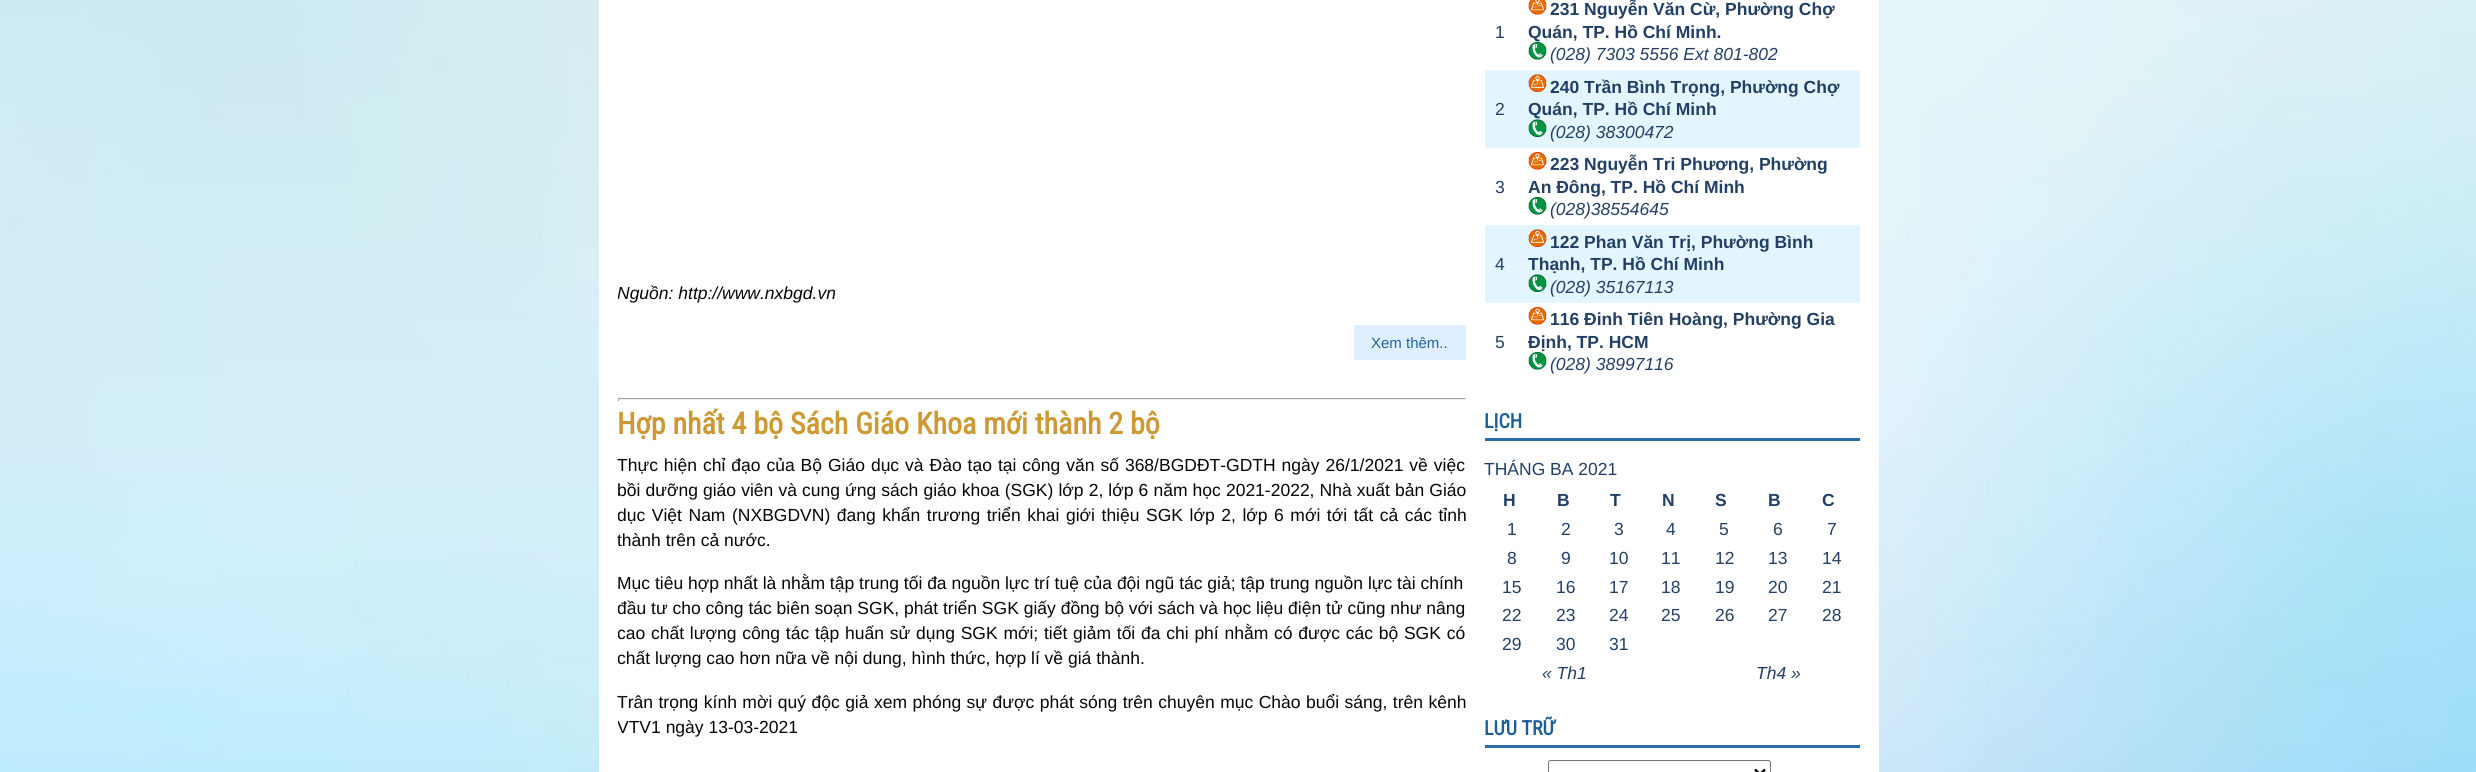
#include <cairo.h>
#include <math.h>
#include <stddef.h>

typedef struct { const char *family; double size; int italic, bold; unsigned color; } style_t;
static cairo_t *ctx;

static void ink(unsigned color) {
    cairo_set_source_rgb(ctx, (color >> 16) / 255.0, (color >> 8 & 255) / 255.0, (color & 255) / 255.0);
}

static void write(double x, double y, const char *s, const style_t *st) {
    cairo_select_font_face(ctx, st->family, st->italic ? CAIRO_FONT_SLANT_ITALIC : CAIRO_FONT_SLANT_NORMAL,
        st->bold ? CAIRO_FONT_WEIGHT_BOLD : CAIRO_FONT_WEIGHT_NORMAL);
    cairo_set_font_size(ctx, st->size);
    ink(st->color);
    cairo_move_to(ctx, x, y);
    cairo_show_text(ctx, s);
}

static void write_spaced(double x, double y, const char *s, double letter, double word) {
    cairo_move_to(ctx, x, y);
    while (*s) {
        char ch[5] = {0};
        int n = 0;
        do ch[n++] = *s++; while ((*s & 0xC0) == 0x80);
        cairo_show_text(ctx, ch);
        cairo_rel_move_to(ctx, letter + word * (*ch == ' '), 0);
    }
}

static void block(double x, double y, double w, double h, unsigned color) {
    ink(color);
    cairo_rectangle(ctx, x, y, w, h);
    cairo_fill(ctx);
}

static void round_path(double x, double y, double w, double h, double r) {
    cairo_new_sub_path(ctx);
    cairo_arc(ctx, x + w - r, y + h - r, r, 0, M_PI / 2);
    cairo_arc(ctx, x + r, y + h - r, r, M_PI / 2, M_PI);
    cairo_arc(ctx, x + r, y + r, r, M_PI, 1.5 * M_PI);
    cairo_arc(ctx, x + w - r, y + r, r, 1.5 * M_PI, 2 * M_PI);
    cairo_close_path(ctx);
}

static void paste(const char *path, double x, double y, double w, double h) {
    cairo_surface_t *image = cairo_image_surface_create_from_png(path);
    cairo_save(ctx);
    cairo_set_source_surface(ctx, image, x, y);
    cairo_rectangle(ctx, x, y, w, h);
    cairo_fill(ctx);
    cairo_restore(ctx);
    cairo_surface_destroy(image);
}

static const style_t s1 = {"Liberation Sans", 17.5, 1, 0, 0x050505};
static const style_t s2 = {"Liberation Sans", 15, 0, 0, 0x2064a3};
static const style_t s3 = {"Roboto Condensed", 30, 0, 1, 0xcc9933};
static const style_t s4 = {"Liberation Sans", 17.5, 0, 0, 0x050505};
static const style_t s5 = {"Liberation Sans", 17.5, 0, 0, 0x224066};
static const style_t s6 = {"Liberation Sans", 17.5, 0, 1, 0x224066};
static const style_t s7 = {"Liberation Sans", 17.5, 1, 0, 0x224066};
static const style_t s8 = {"Roboto Condensed", 20, 0, 1, 0x1d5d9a};

int main(void) {
    cairo_surface_t *surface = cairo_image_surface_create(CAIRO_FORMAT_RGB24, 2476, 772);
    ctx = cairo_create(surface);
    cairo_font_options_t *options = cairo_font_options_create();
    cairo_font_options_set_hint_metrics(options, CAIRO_HINT_METRICS_OFF);
    cairo_font_options_set_hint_style(options, CAIRO_HINT_STYLE_NONE);
    cairo_set_font_options(ctx, options);
    cairo_set_miter_limit(ctx, 4);
    ink(0xffffff);
    cairo_paint(ctx);
    paste("pic1.png", 0, 0, 2476, 772);
    block(599, 0, 1280, 772, 0xffffff);
    cairo_save(ctx);
    cairo_rectangle(ctx, 618, 0, 848, 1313);
    cairo_clip(ctx);
    write(617, 299, "Nguồn: http://www.nxbgd.vn", &s1);
    cairo_restore(ctx);
    block(1354, 325, 112, 35, 0xe0efff);
    write(1371, 348, "Xem thêm..", &s2);
    block(618, 398, 848, 1, 0x9f9f9f);
    block(1465, 398, 1, 3, 0xeeeeee);
    block(618, 399, 848, 1, 0xeeeeee);
    block(618, 398, 1, 3, 0x9f9f9f);
    write(617, 434, "Hợp nhất 4 bộ Sách Giáo Khoa mới thành 2 bộ", &s3);
    cairo_select_font_face(ctx, "Liberation Sans", CAIRO_FONT_SLANT_NORMAL, CAIRO_FONT_WEIGHT_NORMAL);
    cairo_set_font_size(ctx, 17.5);
    ink(0x050505);
    write_spaced(617, 471, "Thực hiện chỉ đạo của Bộ Giáo dục và Đào tạo tại công văn số 368/BGDĐT-GDTH ngày 26/1/2021 về việc", 0, 1.1);
    write_spaced(617, 496, "bồi dưỡng giáo viên và cung ứng sách giáo khoa (SGK) lớp 2, lớp 6 năm học 2021-2022, Nhà xuất bản Giáo", 0, 0.25);
    cairo_save(ctx);
    cairo_rectangle(ctx, 618, 0, 848, 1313);
    cairo_clip(ctx);
    write_spaced(617, 521, "dục Việt Nam (NXBGDVN) đang khẩn trương triển khai giới thiệu SGK lớp 2, lớp 6 mới tới tất cả các tỉnh", 0, 1.7);
    cairo_restore(ctx);
    write(617, 546, "thành trên cả nước.", &s4);
    write(617, 589, "Mục tiêu hợp nhất là nhằm tập trung tối đa nguồn lực trí tuệ của đội ngũ tác giả; tập trung nguồn lực tài chính", &s4);
    cairo_save(ctx);
    cairo_rectangle(ctx, 618, 0, 848, 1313);
    cairo_clip(ctx);
    write(617, 614, "đầu tư cho công tác biên soạn SGK, phát triển SGK giấy đồng bộ với sách và học liệu điện tử cũng như nâng", &s4);
    write_spaced(617, 639, "cao chất lượng công tác tập huấn sử dụng SGK mới; tiết giảm tối đa chi phí nhằm có được các bộ SGK có", 0, 0.9);
    write(617, 664, "chất lượng cao hơn nữa về nội dung, hình thức, hợp lí về giá thành.", &s4);
    cairo_restore(ctx);
    write_spaced(617, 708, "Trân trọng kính mời quý độc giả xem phóng sự được phát sóng trên chuyên mục Chào buổi sáng, trên kênh", 0, 0.6);
    cairo_save(ctx);
    cairo_rectangle(ctx, 618, 0, 848, 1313);
    cairo_clip(ctx);
    write(617, 733, "VTV1 ngày 13-03-2021", &s4);
    cairo_restore(ctx);
    write(1495, 38, "1", &s5);
    paste("pic2.png", 1528, 0, 19, 15);
    write(1550, 15, "231 Nguyễn Văn Cừ, Phường Chợ", &s6);
    write(1528, 38, "Quán, TP. Hồ Chí Minh.", &s6);
    paste("pic3.png", 1528, 42, 19, 18);
    write(1550, 60, "(028) 7303 5556 Ext 801-802", &s7);
    block(1485, 70, 375, 78, 0xe3f6ff);
    write(1495, 115, "2", &s5);
    paste("pic4.png", 1528, 74, 19, 18);
    write(1550, 93, "240 Trần Bình Trọng, Phường Chợ", &s6);
    write(1528, 115, "Quán, TP. Hồ Chí Minh", &s6);
    paste("pic5.png", 1528, 119, 19, 18);
    write(1550, 138, "(028) 38300472", &s7);
    write(1495, 193, "3", &s5);
    paste("pic6.png", 1528, 152, 19, 18);
    write(1550, 170, "223 Nguyễn Tri Phương, Phường", &s6);
    write(1528, 193, "An Đông, TP. Hồ Chí Minh", &s6);
    paste("pic3.png", 1528, 197, 19, 18);
    write(1550, 215, "(028)38554645", &s7);
    block(1485, 225, 375, 78, 0xe3f6ff);
    write(1495, 270, "4", &s5);
    paste("pic4.png", 1528, 229, 19, 18);
    write(1550, 248, "122 Phan Văn Trị, Phường Bình", &s6);
    write(1528, 270, "Thạnh, TP. Hồ Chí Minh", &s6);
    paste("pic5.png", 1528, 274, 19, 18);
    write(1550, 293, "(028) 35167113", &s7);
    write(1495, 348, "5", &s5);
    paste("pic6.png", 1528, 307, 19, 18);
    write(1550, 325, "116 Đinh Tiên Hoàng, Phường Gia", &s6);
    write(1528, 348, "Định, TP. HCM", &s6);
    paste("pic3.png", 1528, 352, 19, 18);
    write(1550, 370, "(028) 38997116", &s7);
    block(1485, 438, 375, 3, 0x2c6da9);
    write(1484, 428, "LỊCH", &s8);
    write(1484, 475, "THÁNG BA 2021", &s5);
    write(1503, 506, "H", &s6);
    write(1557, 506, "B", &s6);
    write(1610, 506, "T", &s6);
    write(1662, 506, "N", &s6);
    write(1715, 506, "S", &s6);
    write(1768, 506, "B", &s6);
    write(1822, 506, "C", &s6);
    write(1507, 535, "1", &s5);
    write(1561, 535, "2", &s5);
    write(1614, 535, "3", &s5);
    write(1666, 535, "4", &s5);
    write(1719, 535, "5", &s5);
    write(1773, 535, "6", &s5);
    write(1827, 535, "7", &s5);
    write(1507, 564, "8", &s5);
    write(1561, 564, "9", &s5);
    write(1609, 564, "10", &s5);
    write(1661, 564, "11", &s5);
    write(1715, 564, "12", &s5);
    write(1768, 564, "13", &s5);
    write(1822, 564, "14", &s5);
    write(1502, 593, "15", &s5);
    write(1556, 593, "16", &s5);
    write(1609, 593, "17", &s5);
    write(1661, 593, "18", &s5);
    write(1715, 593, "19", &s5);
    write(1768, 593, "20", &s5);
    write(1822, 593, "21", &s5);
    write(1502, 621, "22", &s5);
    write(1556, 621, "23", &s5);
    write(1609, 621, "24", &s5);
    write(1661, 621, "25", &s5);
    write(1715, 621, "26", &s5);
    write(1768, 621, "27", &s5);
    write(1822, 621, "28", &s5);
    write(1502, 650, "29", &s5);
    write(1556, 650, "30", &s5);
    write(1609, 650, "31", &s5);
    write(1542, 679, "« Th1", &s7);
    write(1756, 679, "Th4 »", &s7);
    block(1485, 745, 375, 3, 0x2c6da9);
    write(1484, 735, "LƯU TRỮ", &s8);
    round_path(1548.5, 760.5, 222, 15, 2);
    ink(0x767676);
    cairo_set_line_width(ctx, 1);
    cairo_stroke(ctx);
    cairo_new_path(ctx);
    cairo_move_to(ctx, 1755, 769.5);
    cairo_line_to(ctx, 1760, 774.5);
    cairo_line_to(ctx, 1765, 769.5);
    ink(0x000000);
    cairo_set_line_width(ctx, 2.5);
    cairo_stroke(ctx);
    cairo_surface_write_to_png(surface, "screenshot.png");
    cairo_font_options_destroy(options);
    cairo_destroy(ctx);
    cairo_surface_destroy(surface);
    return 0;
}
